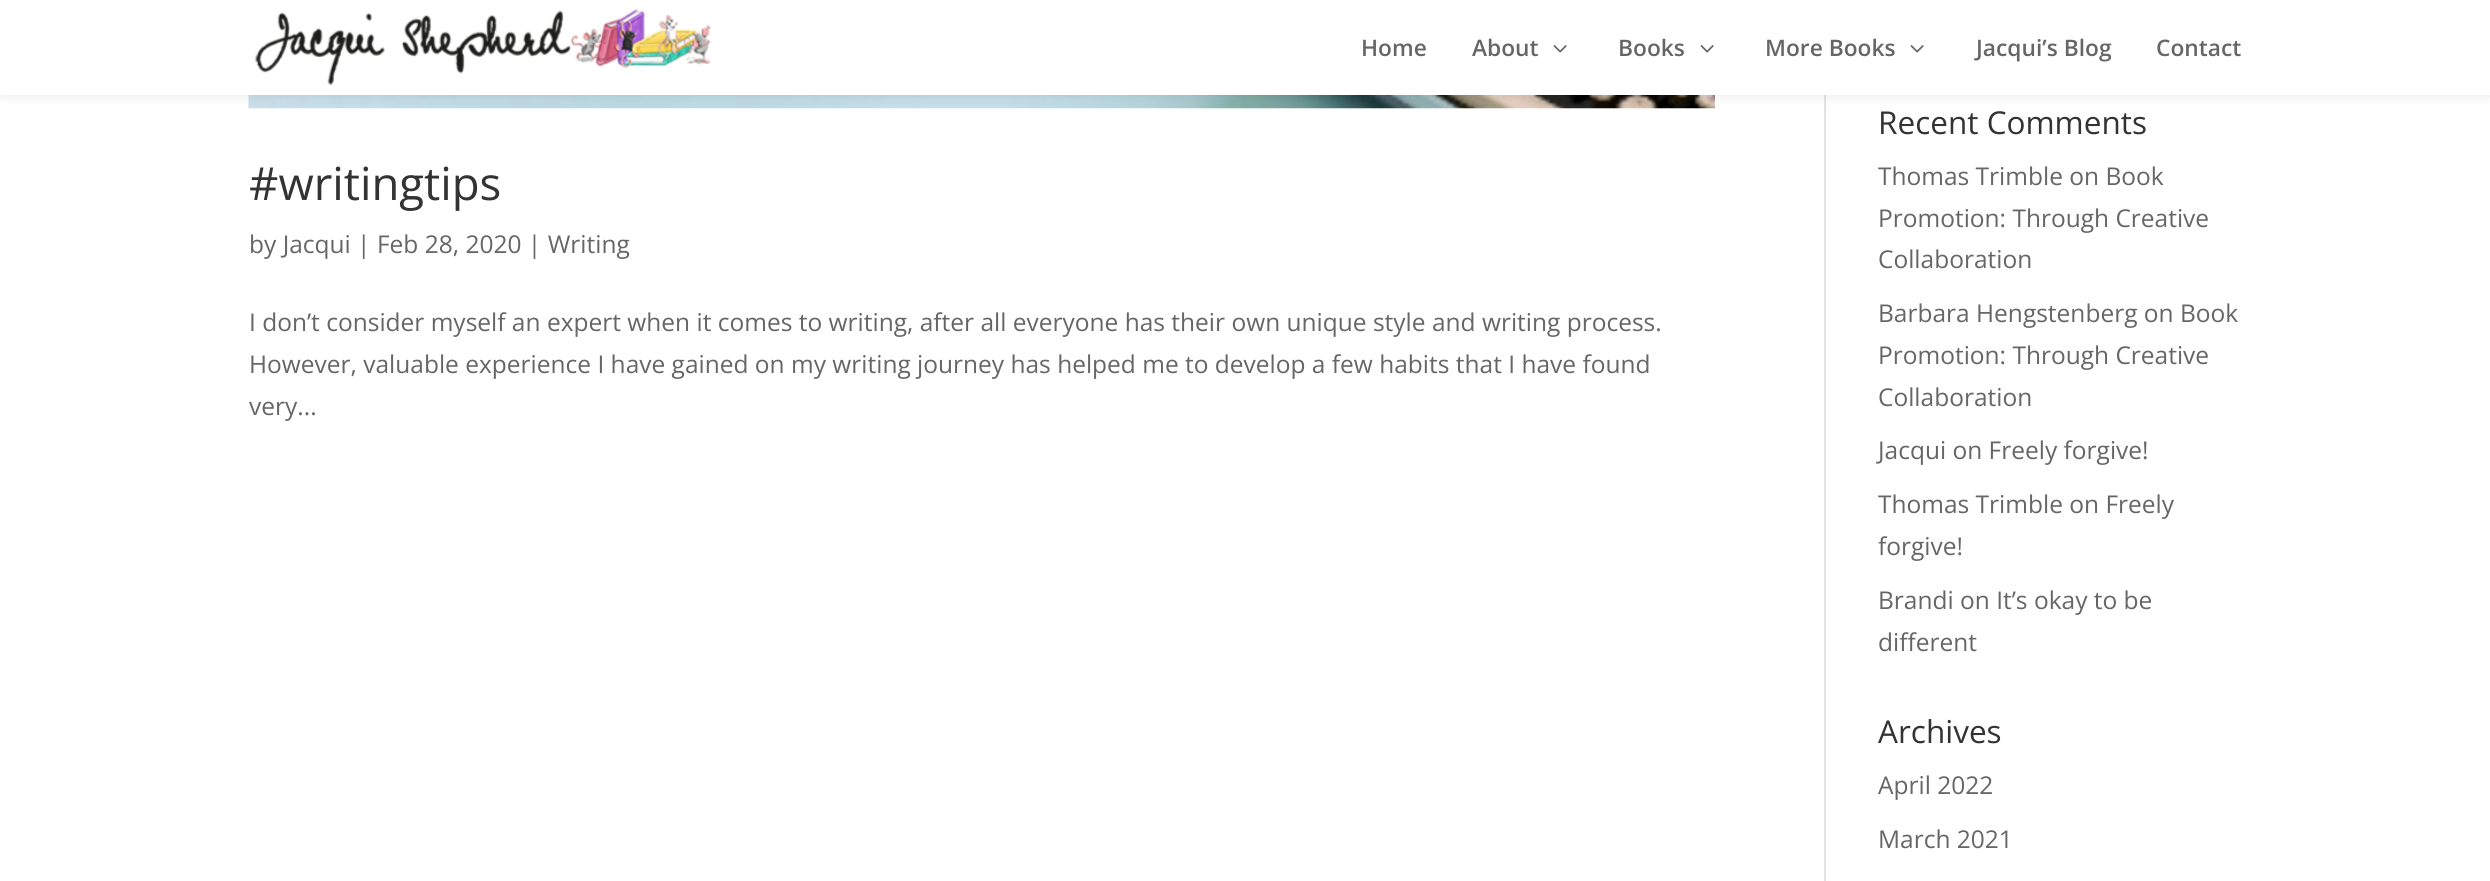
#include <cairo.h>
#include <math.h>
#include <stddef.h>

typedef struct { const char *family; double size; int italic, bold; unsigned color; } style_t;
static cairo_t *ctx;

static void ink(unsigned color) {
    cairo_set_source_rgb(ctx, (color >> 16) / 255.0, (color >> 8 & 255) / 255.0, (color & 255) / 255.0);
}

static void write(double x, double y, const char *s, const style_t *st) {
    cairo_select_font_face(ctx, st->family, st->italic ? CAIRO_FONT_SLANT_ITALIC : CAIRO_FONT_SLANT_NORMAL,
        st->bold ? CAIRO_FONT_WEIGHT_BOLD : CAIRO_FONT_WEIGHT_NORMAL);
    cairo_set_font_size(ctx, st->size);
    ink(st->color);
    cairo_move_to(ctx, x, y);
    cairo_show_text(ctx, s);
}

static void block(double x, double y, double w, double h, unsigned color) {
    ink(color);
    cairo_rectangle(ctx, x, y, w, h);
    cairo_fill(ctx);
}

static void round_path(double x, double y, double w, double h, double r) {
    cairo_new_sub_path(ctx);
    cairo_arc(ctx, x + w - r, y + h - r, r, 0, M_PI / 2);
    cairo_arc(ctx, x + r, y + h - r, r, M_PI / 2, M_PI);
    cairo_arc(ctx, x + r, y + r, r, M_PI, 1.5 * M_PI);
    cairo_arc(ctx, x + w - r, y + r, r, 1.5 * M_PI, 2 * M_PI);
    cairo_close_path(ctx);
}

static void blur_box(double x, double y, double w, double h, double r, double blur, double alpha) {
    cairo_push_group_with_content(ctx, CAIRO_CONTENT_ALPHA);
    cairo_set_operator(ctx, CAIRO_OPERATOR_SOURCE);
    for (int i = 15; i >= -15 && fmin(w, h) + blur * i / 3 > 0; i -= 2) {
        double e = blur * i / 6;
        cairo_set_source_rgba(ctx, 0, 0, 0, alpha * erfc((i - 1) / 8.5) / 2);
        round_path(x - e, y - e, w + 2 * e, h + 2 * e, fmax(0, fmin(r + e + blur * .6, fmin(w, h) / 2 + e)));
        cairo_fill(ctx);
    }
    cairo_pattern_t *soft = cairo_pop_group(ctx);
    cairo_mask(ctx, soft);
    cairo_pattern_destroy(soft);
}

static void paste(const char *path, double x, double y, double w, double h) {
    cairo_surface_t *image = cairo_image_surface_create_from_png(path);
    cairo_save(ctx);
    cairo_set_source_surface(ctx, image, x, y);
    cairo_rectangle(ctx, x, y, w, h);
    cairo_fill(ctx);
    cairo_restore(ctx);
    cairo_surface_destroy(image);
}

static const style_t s1 = {"Open Sans SemiBold", 22.75, 0, 0, 0x666666};
static const style_t s2 = {"Open Sans", 45.5, 0, 0, 0x333333};
static const style_t s3 = {"Open Sans", 24.5, 0, 0, 0x666666};
static const style_t s4 = {"Open Sans", 31.5, 0, 0, 0x333333};

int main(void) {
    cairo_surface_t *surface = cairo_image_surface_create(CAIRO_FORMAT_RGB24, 2490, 881);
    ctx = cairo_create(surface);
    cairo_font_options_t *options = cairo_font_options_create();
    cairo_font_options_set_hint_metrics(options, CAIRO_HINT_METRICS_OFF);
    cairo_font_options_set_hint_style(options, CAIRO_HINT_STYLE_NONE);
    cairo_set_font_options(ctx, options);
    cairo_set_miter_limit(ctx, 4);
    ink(0xffffff);
    cairo_paint(ctx);
    block(1824, 95, 2, 786, 0xe2e2e2);
    paste("pic3.png", 248, 95, 1467, 14);
    ink(0x000000);
    blur_box(0, 0, 2490, 95, 0, 6, 0.1);
    block(0, 0, 2490, 95, 0xffffff);
    paste("pic1.png", 254, 8, 458, 77);
    write(1361, 56, "Home", &s1);
    write(1472, 56, "About", &s1);
    paste("pic2.png", 1553, 45, 14, 8);
    write(1618, 56, "Books", &s1);
    paste("pic2.png", 1700, 45, 14, 8);
    write(1765, 56, "More Books", &s1);
    paste("pic2.png", 1910, 45, 14, 8);
    write(1976, 56, "Jacqui’s Blog", &s1);
    write(2156, 56, "Contact", &s1);
    write(249, 200, "#writingtips", &s2);
    write(249, 253, "by Jacqui | Feb 28, 2020 | Writing", &s3);
    write(249, 331, "I don’t consider myself an expert when it comes to writing, after all everyone has their own unique style and writing process.", &s3);
    write(249, 373, "However, valuable experience I have gained on my writing journey has helped me to develop a few habits that I have found", &s3);
    write(249, 415, "very...", &s3);
    write(1878, 134, "Recent Comments", &s4);
    write(1878, 185, "Thomas Trimble on Book", &s3);
    write(1878, 227, "Promotion: Through Creative", &s3);
    write(1878, 268, "Collaboration", &s3);
    write(1878, 322, "Barbara Hengstenberg on Book", &s3);
    write(1878, 364, "Promotion: Through Creative", &s3);
    write(1878, 406, "Collaboration", &s3);
    write(1878, 459, "Jacqui on Freely forgive!", &s3);
    write(1878, 513, "Thomas Trimble on Freely", &s3);
    write(1878, 555, "forgive!", &s3);
    write(1878, 609, "Brandi on It’s okay to be", &s3);
    write(1878, 651, "different", &s3);
    write(1878, 743, "Archives", &s4);
    write(1878, 794, "April 2022", &s3);
    write(1878, 848, "March 2021", &s3);
    cairo_surface_write_to_png(surface, "screenshot.png");
    cairo_font_options_destroy(options);
    cairo_destroy(ctx);
    cairo_surface_destroy(surface);
    return 0;
}
